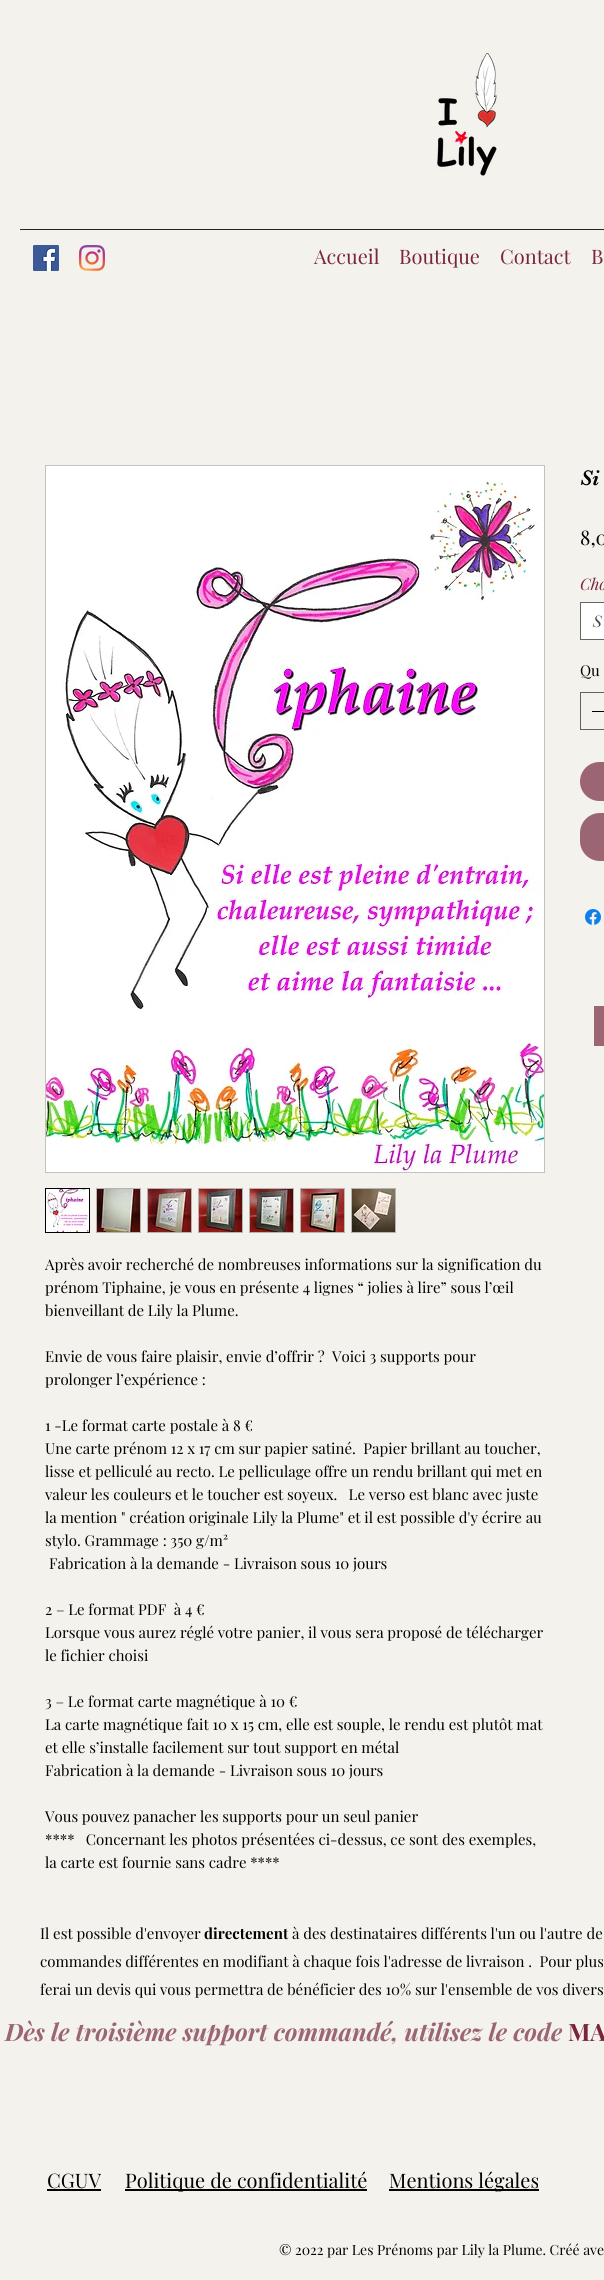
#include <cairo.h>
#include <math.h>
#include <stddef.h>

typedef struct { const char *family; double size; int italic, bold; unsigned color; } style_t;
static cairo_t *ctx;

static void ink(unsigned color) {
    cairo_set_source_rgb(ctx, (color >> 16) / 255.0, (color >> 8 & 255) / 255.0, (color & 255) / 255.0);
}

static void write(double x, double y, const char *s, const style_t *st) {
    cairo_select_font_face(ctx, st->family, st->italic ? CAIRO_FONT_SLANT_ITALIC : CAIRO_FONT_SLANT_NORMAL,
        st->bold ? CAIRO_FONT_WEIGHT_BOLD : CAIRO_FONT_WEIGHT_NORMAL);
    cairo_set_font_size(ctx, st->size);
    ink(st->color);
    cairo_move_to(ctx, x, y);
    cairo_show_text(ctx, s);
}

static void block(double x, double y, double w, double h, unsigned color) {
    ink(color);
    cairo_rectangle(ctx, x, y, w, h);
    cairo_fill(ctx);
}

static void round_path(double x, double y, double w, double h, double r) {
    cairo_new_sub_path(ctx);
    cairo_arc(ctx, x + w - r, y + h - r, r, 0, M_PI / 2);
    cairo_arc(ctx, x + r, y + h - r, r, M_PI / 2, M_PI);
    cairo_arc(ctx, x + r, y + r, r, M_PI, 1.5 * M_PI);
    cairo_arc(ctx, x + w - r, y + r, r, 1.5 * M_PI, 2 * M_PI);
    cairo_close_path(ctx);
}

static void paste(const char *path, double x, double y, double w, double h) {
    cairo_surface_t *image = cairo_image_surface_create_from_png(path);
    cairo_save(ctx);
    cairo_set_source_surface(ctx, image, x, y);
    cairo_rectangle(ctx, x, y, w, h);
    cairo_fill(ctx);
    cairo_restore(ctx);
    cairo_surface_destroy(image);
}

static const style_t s1 = {"Playfair Display", 20, 0, 0, 0x79253d};
static const style_t s2 = {"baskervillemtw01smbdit", 22, 0, 0, 0x000000};
static const style_t s3 = {"Playfair Display", 20, 0, 0, 0x000000};
static const style_t s4 = {"Playfair Display", 16, 1, 0, 0x79253d};
static const style_t s5 = {"Playfair Display", 16, 1, 0, 0x444444};
static const style_t s6 = {"Playfair Display", 15, 0, 0, 0x000000};
static const style_t s7 = {"Playfair Display", 15, 0, 1, 0x000000};
static const style_t s8 = {"Playfair Display", 24, 1, 1, 0x9b6574};
static const style_t s9 = {"Playfair Display", 24, 0, 1, 0x79253d};
static const style_t s10 = {"Playfair Display", 14, 0, 0, 0x000000};

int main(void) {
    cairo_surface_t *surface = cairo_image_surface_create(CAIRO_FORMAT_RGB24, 604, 2280);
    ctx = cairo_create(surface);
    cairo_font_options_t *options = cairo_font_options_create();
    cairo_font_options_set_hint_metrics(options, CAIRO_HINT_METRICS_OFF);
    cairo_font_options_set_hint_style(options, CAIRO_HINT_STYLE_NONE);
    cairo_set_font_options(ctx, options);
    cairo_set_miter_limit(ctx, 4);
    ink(0xf4f2ec);
    cairo_paint(ctx);
    paste("pic1.png", 437, 53, 61, 123);
    block(20, 229, 584, 1, 0x252423);
    paste("pic2.png", 33, 245, 26, 26);
    paste("pic3.png", 79, 245, 26, 26);
    write(314, 264, "Accueil", &s1);
    write(399, 264, "Boutique", &s1);
    write(500, 264, "Contact", &s1);
    write(591, 264, "B", &s1);
    write(580, 485, "Si", &s2);
    write(580, 545, "8,0", &s3);
    write(580, 590, "Cho", &s4);
    ink(0xffffff);
    cairo_rectangle(ctx, 580.5, 602.5, 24, 37);
    cairo_fill_preserve(ctx);
    ink(0x666666);
    cairo_set_line_width(ctx, 1);
    cairo_stroke(ctx);
    write(593, 627, "S", &s5);
    write(580, 676, "Qu", &s6);
    cairo_rectangle(ctx, 580.5, 692.5, 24, 37);
    ink(0x62615e);
    cairo_stroke(ctx);
    block(592, 711, 12, 1, 0x000000);
    ink(0x9b6574);
    round_path(580, 762, 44, 39, 19.5);
    cairo_fill(ctx);
    round_path(580, 813, 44, 48, 20);
    cairo_fill(ctx);
    paste("pic4.png", 585, 909, 16, 16);
    cairo_rectangle(ctx, 45.5, 465.5, 499, 707);
    ink(0xc3c2bd);
    cairo_stroke(ctx);
    paste("pic5.png", 46, 466, 498, 706);
    cairo_rectangle(ctx, 45.5, 1188.5, 44, 44);
    ink(0x000000);
    cairo_stroke(ctx);
    paste("pic6.png", 46, 1189, 43, 43);
    block(96, 1188, 45, 45, 0xb4b4b4);
    paste("pic7.png", 97, 1189, 43, 43);
    block(147, 1188, 45, 45, 0xb4b4b4);
    paste("pic8.png", 148, 1189, 43, 43);
    block(198, 1188, 45, 45, 0xb4b4b4);
    paste("pic9.png", 199, 1189, 43, 43);
    block(249, 1188, 45, 45, 0xb4b4b4);
    paste("pic10.png", 250, 1189, 43, 43);
    block(300, 1188, 45, 45, 0xb4b4b4);
    paste("pic11.png", 301, 1189, 43, 43);
    block(351, 1188, 45, 45, 0xb4b4b4);
    paste("pic12.png", 352, 1189, 43, 43);
    write(45, 1270, "Après avoir recherché de nombreuses informations sur la signification du", &s6);
    write(45, 1293, "prénom Tiphaine, je vous en présente 4 lignes “ jolies à lire” sous l’œil", &s6);
    write(45, 1316, "bienveillant de Lily la Plume.", &s6);
    write(45, 1362, "Envie de vous faire plaisir, envie d’offrir ?  Voici 3 supports pour", &s6);
    write(45, 1385, "prolonger l’expérience :", &s6);
    write(45, 1431, "1 -Le format carte postale à 8 €", &s6);
    write(45, 1454, "Une carte prénom 12 x 17 cm sur papier satiné.  Papier brillant au toucher,", &s6);
    write(45, 1477, "lisse et pelliculé au recto. Le pelliculage offre un rendu brillant qui met en", &s6);
    write(45, 1500, "valeur les couleurs et le toucher est soyeux.   Le verso est blanc avec juste", &s6);
    write(45, 1523, "la mention \" création originale Lily la Plume\" et il est possible d'y écrire au", &s6);
    write(45, 1546, "stylo. Grammage : 350 g/m²", &s6);
    write(49, 1569, "Fabrication à la demande - Livraison sous 10 jours", &s6);
    write(45, 1615, "2 – Le format PDF  à 4 €", &s6);
    write(45, 1638, "Lorsque vous aurez réglé votre panier, il vous sera proposé de télécharger", &s6);
    write(45, 1661, "le fichier choisi", &s6);
    write(45, 1707, "3 – Le format carte magnétique à 10 €", &s6);
    write(45, 1730, "La carte magnétique fait 10 x 15 cm, elle est souple, le rendu est plutôt mat", &s6);
    write(45, 1753, "et elle s’installe facilement sur tout support en métal", &s6);
    write(45, 1776, "Fabrication à la demande - Livraison sous 10 jours", &s6);
    write(45, 1822, "Vous pouvez panacher les supports pour un seul panier", &s6);
    write(45, 1845, "****   Concernant les photos présentées ci-dessus, ce sont des exemples,", &s6);
    write(45, 1868, "la carte est fournie sans cadre ****", &s6);
    block(594, 1006, 10, 40, 0x9b6574);
    write(40, 1939, "Il est possible d'envoyer", &s6);
    write(204, 1939, "directement", &s7);
    write(292, 1939, "à des destinataires différents l'un ou l'autre de", &s6);
    write(40, 1967, "commandes différentes en modifiant à chaque fois l'adresse de livraison .  Pour plus", &s6);
    write(40, 1995, "ferai un devis qui vous permettra de bénéficier des 10% sur l'ensemble de vos divers", &s6);
    write(5, 2041, "Dès le troisième support commandé, utilisez le code", &s8);
    write(568, 2041, "MA", &s9);
    write(47, 2188, "CGUV", &s3);
    block(47, 2189, 54, 2, 0x000000);
    block(125, 2189, 242, 2, 0x000000);
    write(125, 2188, "Politique de confidentialité", &s3);
    block(389, 2189, 150, 2, 0x000000);
    write(389, 2188, "Mentions légales", &s3);
    write(279, 2255, "© 2022 par Les Prénoms par Lily la Plume. Créé ave", &s10);
    cairo_surface_write_to_png(surface, "screenshot.png");
    cairo_font_options_destroy(options);
    cairo_destroy(ctx);
    cairo_surface_destroy(surface);
    return 0;
}
